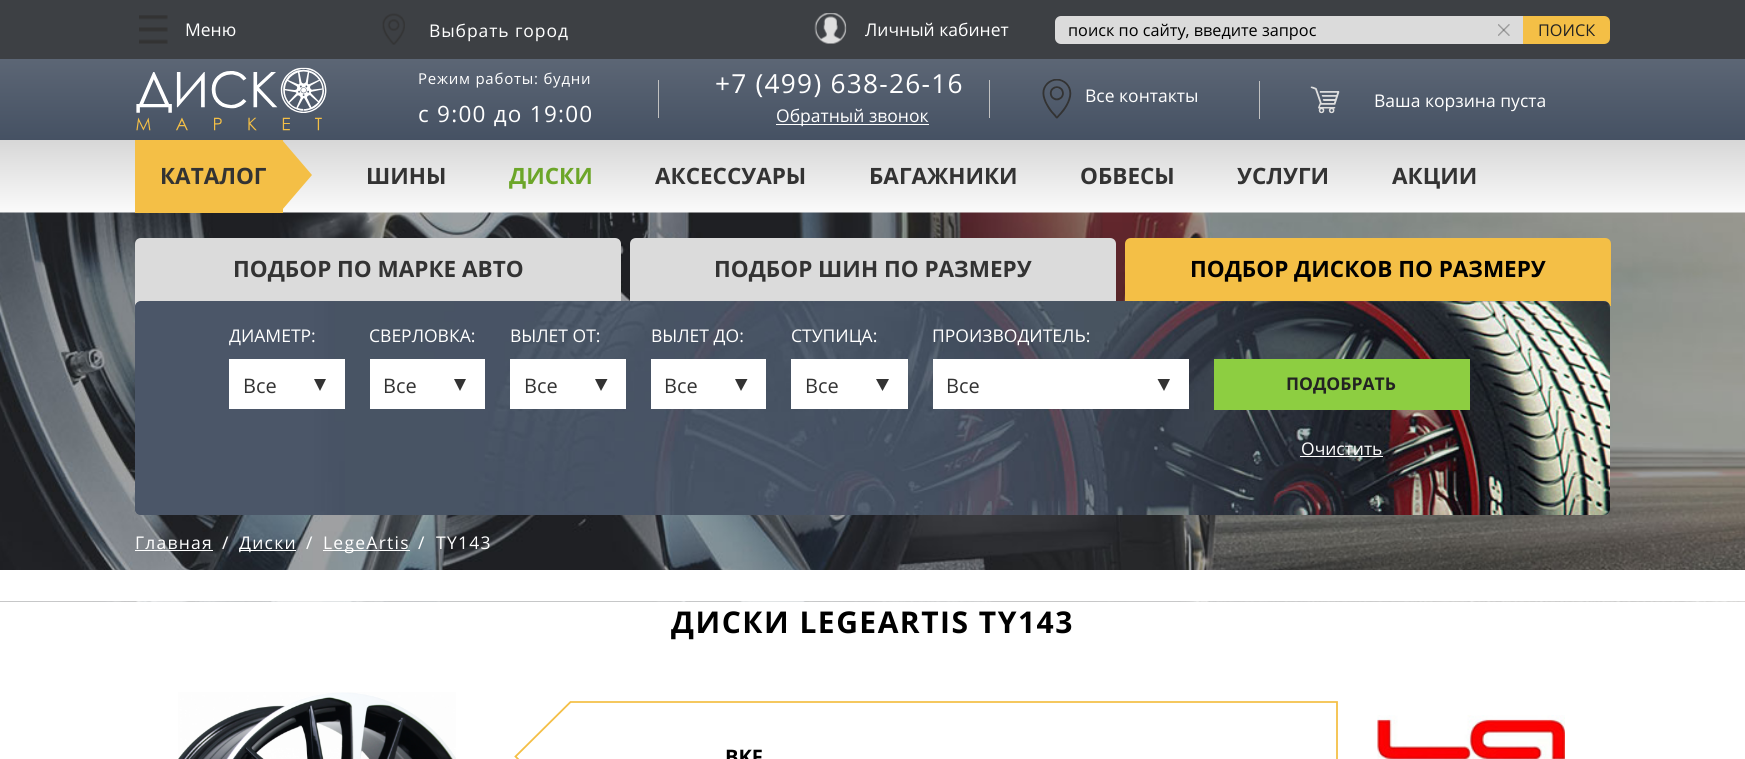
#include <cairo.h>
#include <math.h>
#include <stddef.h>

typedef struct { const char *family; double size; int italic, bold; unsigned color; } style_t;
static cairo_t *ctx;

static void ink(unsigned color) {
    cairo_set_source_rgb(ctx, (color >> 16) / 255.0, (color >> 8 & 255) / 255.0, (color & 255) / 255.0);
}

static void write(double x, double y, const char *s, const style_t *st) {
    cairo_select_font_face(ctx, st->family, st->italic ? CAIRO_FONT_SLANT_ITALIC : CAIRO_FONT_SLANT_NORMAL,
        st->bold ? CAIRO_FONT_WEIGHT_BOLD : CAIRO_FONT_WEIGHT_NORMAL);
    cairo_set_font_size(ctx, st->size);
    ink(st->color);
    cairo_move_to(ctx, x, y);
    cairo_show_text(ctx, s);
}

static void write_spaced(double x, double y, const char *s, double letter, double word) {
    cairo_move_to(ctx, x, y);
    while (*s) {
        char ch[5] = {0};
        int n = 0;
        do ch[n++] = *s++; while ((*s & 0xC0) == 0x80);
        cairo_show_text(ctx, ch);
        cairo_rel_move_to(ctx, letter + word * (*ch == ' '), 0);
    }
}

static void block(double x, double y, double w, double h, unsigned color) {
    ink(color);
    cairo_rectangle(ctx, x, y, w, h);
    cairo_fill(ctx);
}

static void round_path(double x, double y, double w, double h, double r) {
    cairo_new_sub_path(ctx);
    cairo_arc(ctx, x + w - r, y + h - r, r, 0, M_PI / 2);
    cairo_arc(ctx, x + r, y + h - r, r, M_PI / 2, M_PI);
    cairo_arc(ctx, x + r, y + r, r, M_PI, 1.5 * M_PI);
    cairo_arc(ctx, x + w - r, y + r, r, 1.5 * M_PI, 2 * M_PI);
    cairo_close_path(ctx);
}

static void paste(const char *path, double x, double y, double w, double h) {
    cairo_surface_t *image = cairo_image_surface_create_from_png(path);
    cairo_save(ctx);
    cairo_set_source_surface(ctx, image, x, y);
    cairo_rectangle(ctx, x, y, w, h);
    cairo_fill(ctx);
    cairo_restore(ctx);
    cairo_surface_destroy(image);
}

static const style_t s1 = {"Open Sans", 17.5, 0, 0, 0xffffff};
static const style_t s2 = {"Open Sans", 16.25, 0, 0, 0x000000};
static const style_t s3 = {"Open Sans", 16.25, 0, 0, 0x232323};
static const style_t s4 = {"Open Sans", 22.5, 0, 1, 0x333333};
static const style_t s5 = {"Open Sans", 22.5, 0, 1, 0x6ca629};
static const style_t s6 = {"Open Sans", 22.5, 0, 1, 0x000000};
static const style_t s7 = {"Open Sans", 20, 0, 0, 0x333333};
static const style_t s8 = {"Open Sans", 17.5, 0, 1, 0x232323};
static const style_t s9 = {"Open Sans", 20, 0, 1, 0x000000};

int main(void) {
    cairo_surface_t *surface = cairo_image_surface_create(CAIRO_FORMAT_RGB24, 1745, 759);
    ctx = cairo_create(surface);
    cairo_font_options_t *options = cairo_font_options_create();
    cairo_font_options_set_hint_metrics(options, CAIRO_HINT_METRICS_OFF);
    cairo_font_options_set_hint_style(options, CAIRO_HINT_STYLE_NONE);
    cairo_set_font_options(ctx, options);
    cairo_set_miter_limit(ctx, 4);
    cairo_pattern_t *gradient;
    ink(0xffffff);
    cairo_paint(ctx);
    block(0, 0, 1745, 59, 0x3d4044);
    paste("pic1.png", 139, 15, 29, 29);
    write(185, 36, "Меню", &s1);
    paste("pic2.png", 382, 13, 23, 32);
    write_spaced(429, 37, "Выбрать город", 0.9, 0);
    paste("pic3.png", 814, 13, 33, 31);
    write(865, 36, "Личный кабинет", &s1);
    ink(0xdbdbdb);
    round_path(1055, 16, 520, 28, 6);
    cairo_fill(ctx);
    write(1068, 36, "поиск по сайту, введите запрос", &s2);
    paste("pic4.png", 1498, 24, 12, 12);
    ink(0xf4bf46);
    cairo_new_path(ctx);
    cairo_move_to(ctx, 1523, 16);
    cairo_line_to(ctx, 1604, 16);
    cairo_curve_to(ctx, 1607.5, 16, 1610, 18.5, 1610, 22);
    cairo_line_to(ctx, 1610, 38);
    cairo_curve_to(ctx, 1610, 41.5, 1607.5, 44, 1604, 44);
    cairo_line_to(ctx, 1523, 44);
    cairo_close_path(ctx);
    cairo_fill(ctx);
    write(1538, 36, "ПОИСК", &s3);
    gradient = cairo_pattern_create_linear(873, 59, 873, 140);
    cairo_pattern_add_color_stop_rgba(gradient, 0, 0.361, 0.4, 0.459, 1);
    cairo_pattern_add_color_stop_rgba(gradient, 1, 0.271, 0.318, 0.388, 1);
    cairo_set_source(ctx, gradient);
    cairo_pattern_destroy(gradient);
    cairo_rectangle(ctx, 0, 59, 1745, 81);
    cairo_fill(ctx);
    paste("pic5.png", 136, 67, 191, 64);
    cairo_set_font_size(ctx, 15);
    ink(0xffffff);
    write_spaced(418, 84, "Режим работы: будни", 0.75, 0);
    cairo_set_font_size(ctx, 22.5);
    write_spaced(418, 122, "с 9:00 до 19:00", 1.25, 0);
    block(658, 80, 1, 38, 0xc1c1c1);
    cairo_set_font_size(ctx, 26.25);
    ink(0xffffff);
    write_spaced(715, 93, "+7 (499) 638-26-16", 1.25, 0);
    block(989, 80, 1, 38, 0xc1c1c1);
    block(776, 124, 153, 1, 0xffffff);
    write(776, 122, "Обратный звонок", &s1);
    paste("pic6.png", 1042, 79, 30, 40);
    write(1085, 102, "Все контакты", &s1);
    block(1259, 81, 1, 38, 0xc1c1c1);
    paste("pic7.png", 1310, 86, 30, 28);
    write(1374, 107, "Ваша корзина пуста", &s1);
    gradient = cairo_pattern_create_linear(873, 140, 873, 213);
    cairo_pattern_add_color_stop_rgba(gradient, 0, 0.843, 0.843, 0.843, 1);
    cairo_pattern_add_color_stop_rgba(gradient, 1, 0.984, 0.984, 0.984, 1);
    cairo_set_source(ctx, gradient);
    cairo_pattern_destroy(gradient);
    cairo_rectangle(ctx, 0, 140, 1745, 73);
    cairo_fill(ctx);
    paste("pic8.png", 0, 212, 1745, 390);
    block(135, 140, 148, 73, 0xf4bf46);
    write(160, 184, "КАТАЛОГ", &s4);
    ink(0xf4bf46);
    cairo_new_path(ctx);
    cairo_move_to(ctx, 282, 210);
    cairo_line_to(ctx, 282, 140);
    cairo_line_to(ctx, 312, 175);
    cairo_close_path(ctx);
    cairo_fill(ctx);
    write(366, 184, "ШИНЫ", &s4);
    write(509, 184, "ДИСКИ", &s5);
    write(655, 184, "АКСЕССУАРЫ", &s4);
    write(869, 184, "БАГАЖНИКИ", &s4);
    write(1080, 184, "ОБВЕСЫ", &s4);
    write(1237, 184, "УСЛУГИ", &s4);
    write(1392, 184, "АКЦИИ", &s4);
    ink(0xdbdbdb);
    cairo_new_path(ctx);
    cairo_move_to(ctx, 141, 238);
    cairo_line_to(ctx, 615, 238);
    cairo_curve_to(ctx, 618.5, 238, 621, 240.5, 621, 244);
    cairo_line_to(ctx, 621, 306);
    cairo_line_to(ctx, 135, 306);
    cairo_line_to(ctx, 135, 244);
    cairo_curve_to(ctx, 135, 240.5, 137.5, 238, 141, 238);
    cairo_close_path(ctx);
    cairo_fill(ctx);
    write(233, 277, "ПОДБОР ПО МАРКЕ АВТО", &s4);
    ink(0xdbdbdb);
    cairo_new_path(ctx);
    cairo_move_to(ctx, 636, 238);
    cairo_line_to(ctx, 1110, 238);
    cairo_curve_to(ctx, 1113.5, 238, 1116, 240.5, 1116, 244);
    cairo_line_to(ctx, 1116, 306);
    cairo_line_to(ctx, 630, 306);
    cairo_line_to(ctx, 630, 244);
    cairo_curve_to(ctx, 630, 240.5, 632.5, 238, 636, 238);
    cairo_close_path(ctx);
    cairo_fill(ctx);
    write(714, 277, "ПОДБОР ШИН ПО РАЗМЕРУ", &s4);
    ink(0xf4bf46);
    cairo_new_path(ctx);
    cairo_move_to(ctx, 1131, 238);
    cairo_line_to(ctx, 1605, 238);
    cairo_curve_to(ctx, 1608.5, 238, 1611, 240.5, 1611, 244);
    cairo_line_to(ctx, 1611, 306);
    cairo_line_to(ctx, 1125, 306);
    cairo_line_to(ctx, 1125, 244);
    cairo_curve_to(ctx, 1125, 240.5, 1127.5, 238, 1131, 238);
    cairo_close_path(ctx);
    cairo_fill(ctx);
    write(1190, 277, "ПОДБОР ДИСКОВ ПО РАЗМЕРУ", &s6);
    ink(0x4a5667);
    round_path(135, 301, 1475, 214, 6);
    cairo_fill(ctx);
    paste("pic9.png", 135, 301, 1475, 214);
    write(229, 342, "ДИАМЕТР:", &s1);
    write(369, 342, "СВЕРЛОВКА:", &s1);
    write(510, 342, "ВЫЛЕТ ОТ:", &s1);
    write(651, 342, "ВЫЛЕТ ДО:", &s1);
    write(791, 342, "СТУПИЦА:", &s1);
    write(932, 342, "ПРОИЗВОДИТЕЛЬ:", &s1);
    block(229, 359, 116, 50, 0xffffff);
    write(243, 393, "Все", &s7);
    cairo_new_path(ctx);
    cairo_move_to(ctx, 314, 379);
    cairo_line_to(ctx, 326, 379);
    cairo_line_to(ctx, 320, 391);
    cairo_close_path(ctx);
    cairo_fill(ctx);
    block(370, 359, 115, 50, 0xffffff);
    write(383, 393, "Все", &s7);
    cairo_new_path(ctx);
    cairo_move_to(ctx, 454, 379);
    cairo_line_to(ctx, 466, 379);
    cairo_line_to(ctx, 460, 391);
    cairo_close_path(ctx);
    cairo_fill(ctx);
    block(510, 359, 116, 50, 0xffffff);
    write(524, 393, "Все", &s7);
    cairo_new_path(ctx);
    cairo_move_to(ctx, 595, 379);
    cairo_line_to(ctx, 607.5, 379);
    cairo_line_to(ctx, 601, 391);
    cairo_close_path(ctx);
    cairo_fill(ctx);
    block(651, 359, 115, 50, 0xffffff);
    write(664, 393, "Все", &s7);
    cairo_new_path(ctx);
    cairo_move_to(ctx, 735, 379);
    cairo_line_to(ctx, 747.5, 379);
    cairo_line_to(ctx, 741, 391);
    cairo_close_path(ctx);
    cairo_fill(ctx);
    block(791, 359, 117, 50, 0xffffff);
    write(805, 393, "Все", &s7);
    cairo_new_path(ctx);
    cairo_move_to(ctx, 876, 379);
    cairo_line_to(ctx, 889, 379);
    cairo_line_to(ctx, 882.5, 391);
    cairo_close_path(ctx);
    cairo_fill(ctx);
    block(933, 359, 256, 50, 0xffffff);
    write(946, 393, "Все", &s7);
    cairo_new_path(ctx);
    cairo_move_to(ctx, 1157.5, 379);
    cairo_line_to(ctx, 1170, 379);
    cairo_line_to(ctx, 1164, 391);
    cairo_close_path(ctx);
    cairo_fill(ctx);
    block(1214, 359, 256, 51, 0x8dce41);
    write(1286, 390, "ПОДОБРАТЬ", &s8);
    write(1301, 455, "Очистить", &s1);
    block(1300, 456, 83, 1, 0xffffff);
    write_spaced(135, 549, "Главная", 1.25, 0);
    block(135, 550, 78, 1, 0xffffff);
    write_spaced(222, 549, "/", 1.25, 0);
    block(239, 550, 57, 1, 0xffffff);
    write_spaced(239, 549, "Диски", 1.25, 0);
    write_spaced(306, 549, "/", 1.25, 0);
    block(323, 550, 87, 1, 0xffffff);
    write_spaced(323, 549, "LegeArtis", 1.25, 0);
    write_spaced(418, 549, "/", 1.25, 0);
    write_spaced(436, 549, "TY143", 1.25, 0);
    block(0, 570, 1745, 31, 0xffffff);
    cairo_select_font_face(ctx, "Open Sans", CAIRO_FONT_SLANT_NORMAL, CAIRO_FONT_WEIGHT_BOLD);
    cairo_set_font_size(ctx, 30);
    ink(0x000000);
    write_spaced(671, 633, "ДИСКИ LEGEARTIS TY143", 1.5, 0);
    paste("pic10.png", 178, 692, 278, 67);
    cairo_new_path(ctx);
    cairo_move_to(ctx, 1337, 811.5);
    cairo_line_to(ctx, 1337, 702);
    cairo_line_to(ctx, 570.5, 702);
    cairo_line_to(ctx, 515.5, 756.5);
    cairo_line_to(ctx, 570.5, 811.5);
    cairo_close_path(ctx);
    ink(0xf4bf46);
    cairo_set_line_width(ctx, 1.8);
    cairo_stroke(ctx);
    write(725, 764, "BKF", &s9);
    paste("pic11.png", 1377, 715, 188, 44);
    cairo_surface_write_to_png(surface, "screenshot.png");
    cairo_font_options_destroy(options);
    cairo_destroy(ctx);
    cairo_surface_destroy(surface);
    return 0;
}
